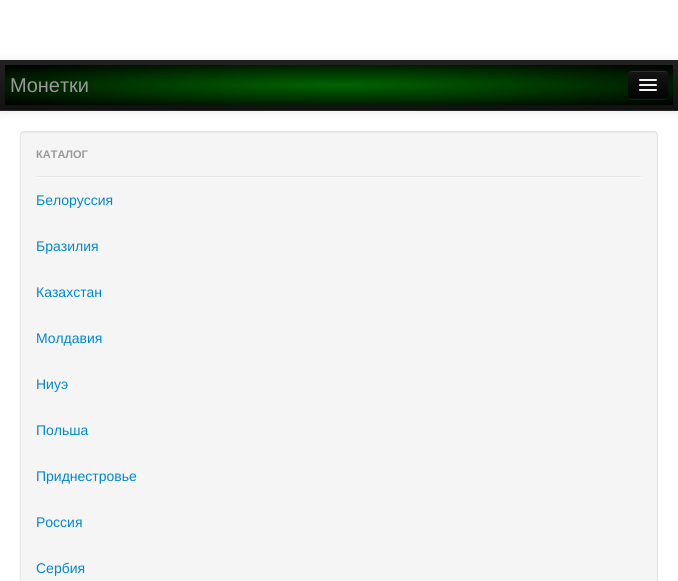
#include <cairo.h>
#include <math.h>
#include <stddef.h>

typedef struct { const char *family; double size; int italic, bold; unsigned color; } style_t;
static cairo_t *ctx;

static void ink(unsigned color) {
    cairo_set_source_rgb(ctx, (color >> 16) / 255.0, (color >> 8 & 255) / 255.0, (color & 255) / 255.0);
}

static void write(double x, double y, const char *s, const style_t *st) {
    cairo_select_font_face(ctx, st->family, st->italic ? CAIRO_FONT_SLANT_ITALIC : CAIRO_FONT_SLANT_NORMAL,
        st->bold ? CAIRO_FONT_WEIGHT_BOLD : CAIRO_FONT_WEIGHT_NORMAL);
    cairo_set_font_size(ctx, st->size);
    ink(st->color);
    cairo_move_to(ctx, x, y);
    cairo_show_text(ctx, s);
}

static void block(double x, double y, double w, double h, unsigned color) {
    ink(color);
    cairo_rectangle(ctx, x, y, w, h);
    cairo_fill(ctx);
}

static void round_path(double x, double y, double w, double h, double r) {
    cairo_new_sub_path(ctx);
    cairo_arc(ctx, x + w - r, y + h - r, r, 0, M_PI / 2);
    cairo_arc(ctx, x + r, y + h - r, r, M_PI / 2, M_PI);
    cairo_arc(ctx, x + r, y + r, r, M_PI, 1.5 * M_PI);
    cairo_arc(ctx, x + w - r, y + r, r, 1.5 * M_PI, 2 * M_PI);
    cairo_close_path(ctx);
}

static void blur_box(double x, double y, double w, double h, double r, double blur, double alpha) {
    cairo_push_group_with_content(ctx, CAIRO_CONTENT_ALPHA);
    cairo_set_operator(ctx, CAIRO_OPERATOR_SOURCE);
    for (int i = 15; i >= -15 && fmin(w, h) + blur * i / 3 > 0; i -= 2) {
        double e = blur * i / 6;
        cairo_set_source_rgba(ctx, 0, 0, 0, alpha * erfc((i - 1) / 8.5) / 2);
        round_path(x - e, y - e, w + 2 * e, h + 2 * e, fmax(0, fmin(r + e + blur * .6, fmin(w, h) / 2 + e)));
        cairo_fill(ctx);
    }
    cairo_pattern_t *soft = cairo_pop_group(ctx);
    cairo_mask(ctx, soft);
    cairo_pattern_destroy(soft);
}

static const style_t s1 = {"Liberation Sans", 20, 0, 0, 0x999999};
static const style_t s2 = {"Liberation Sans", 11, 0, 1, 0x999999};
static const style_t s3 = {"Liberation Sans", 14, 0, 0, 0x0088cc};

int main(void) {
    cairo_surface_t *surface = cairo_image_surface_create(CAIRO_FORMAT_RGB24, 678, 581);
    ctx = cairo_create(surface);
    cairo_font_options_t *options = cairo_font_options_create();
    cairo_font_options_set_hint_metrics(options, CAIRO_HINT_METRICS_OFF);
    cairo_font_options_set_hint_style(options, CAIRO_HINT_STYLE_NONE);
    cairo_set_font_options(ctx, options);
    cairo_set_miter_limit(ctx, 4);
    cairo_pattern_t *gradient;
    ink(0xffffff);
    cairo_paint(ctx);
    ink(0x000000);
    blur_box(0, 61, 678, 51, 0, 5, 0.1);
    gradient = cairo_pattern_create_linear(339, 60, 339, 110);
    cairo_pattern_add_color_stop_rgba(gradient, 0, 0.133, 0.133, 0.133, 1);
    cairo_pattern_add_color_stop_rgba(gradient, 1, 0.067, 0.067, 0.067, 1);
    cairo_set_source(ctx, gradient);
    cairo_pattern_destroy(gradient);
    cairo_rectangle(ctx, 0, 60, 678, 50);
    cairo_fill(ctx);
    block(0, 110, 678, 1, 0x252525);
    gradient = cairo_pattern_create_radial(0, 0, 0, 0, 0, 1);
    cairo_pattern_set_matrix(gradient, &(cairo_matrix_t){1.0 / 472, 0, 0, 1.0 / 28, -1.0 * 339 / 472, -1.0 * 85 / 28});
    cairo_pattern_add_color_stop_rgba(gradient, 0, 0, 0.392, 0, 1);
    cairo_pattern_add_color_stop_rgba(gradient, 1, 0, 0, 0, 1);
    cairo_set_source(ctx, gradient);
    cairo_pattern_destroy(gradient);
    cairo_rectangle(ctx, 5, 65, 668, 40);
    cairo_fill(ctx);
    write(10, 92, "Монетки", &s1);
    cairo_set_source_rgba(ctx, 1, 1, 1, 0.07);
    cairo_new_path(ctx);
    cairo_move_to(ctx, 628, 95);
    cairo_curve_to(ctx, 628, 101, 633, 100, 637, 100);
    cairo_line_to(ctx, 659, 100);
    cairo_curve_to(ctx, 663, 100, 668, 101, 668, 95);
    cairo_curve_to(ctx, 668, 97, 666, 99, 664, 99);
    cairo_line_to(ctx, 632, 99);
    cairo_curve_to(ctx, 630, 99, 628, 97, 628, 95);
    cairo_close_path(ctx);
    cairo_fill(ctx);
    ink(0x0e0e0e);
    round_path(628, 70, 40, 29, 4);
    cairo_fill(ctx);
    cairo_save(ctx);
    round_path(628, 70, 40, 29, 4);
    cairo_clip(ctx);
    gradient = cairo_pattern_create_linear(648, 71, 648, 98);
    cairo_pattern_add_color_stop_rgba(gradient, 0, 0.082, 0.082, 0.082, 1);
    cairo_pattern_add_color_stop_rgba(gradient, 1, 0.016, 0.016, 0.016, 1);
    cairo_set_source(ctx, gradient);
    cairo_pattern_destroy(gradient);
    cairo_rectangle(ctx, 628, 71, 40, 27);
    cairo_fill(ctx);
    cairo_restore(ctx);
    ink(0x2c2c2c);
    cairo_new_path(ctx);
    cairo_move_to(ctx, 632, 72);
    cairo_line_to(ctx, 664, 72);
    cairo_curve_to(ctx, 666, 72, 667, 73, 667, 75);
    cairo_curve_to(ctx, 667, 70, 663, 71, 658.5, 71);
    cairo_line_to(ctx, 637.5, 71);
    cairo_curve_to(ctx, 633, 71, 629, 70, 629, 75);
    cairo_curve_to(ctx, 629, 73, 630, 72, 632, 72);
    cairo_close_path(ctx);
    cairo_fill(ctx);
    cairo_new_path(ctx);
    cairo_move_to(ctx, 666.5, 97.5);
    cairo_curve_to(ctx, 666, 98, 665, 98.5, 664, 98.5);
    cairo_line_to(ctx, 632, 98.5);
    cairo_curve_to(ctx, 631, 98.5, 630, 98, 629.5, 97.5);
    cairo_set_source_rgba(ctx, 0, 0, 0, 0.25);
    cairo_set_line_width(ctx, 1);
    cairo_stroke(ctx);
    ink(0x0b0b0b);
    cairo_new_path(ctx);
    cairo_move_to(ctx, 639, 80.5);
    cairo_curve_to(ctx, 638, 82.5, 642.5, 82, 642.5, 82);
    cairo_line_to(ctx, 653.5, 82);
    cairo_curve_to(ctx, 653.5, 82, 658, 82.5, 657, 80.5);
    cairo_curve_to(ctx, 656, 81.5, 649.5, 81, 648, 81);
    cairo_curve_to(ctx, 646.5, 81, 640, 81.5, 639, 80.5);
    cairo_close_path(ctx);
    cairo_fill(ctx);
    ink(0xf5f5f5);
    round_path(639, 79, 18, 2, 1);
    cairo_fill(ctx);
    ink(0x080808);
    cairo_new_path(ctx);
    cairo_move_to(ctx, 639, 85.5);
    cairo_curve_to(ctx, 638, 87.5, 642.5, 87, 642.5, 87);
    cairo_line_to(ctx, 653.5, 87);
    cairo_curve_to(ctx, 653.5, 87, 658, 87.5, 657, 85.5);
    cairo_curve_to(ctx, 656, 86.5, 649.5, 86, 648, 86);
    cairo_curve_to(ctx, 646.5, 86, 640, 86.5, 639, 85.5);
    cairo_close_path(ctx);
    cairo_fill(ctx);
    ink(0xf5f5f5);
    round_path(639, 84, 18, 2, 1);
    cairo_fill(ctx);
    round_path(639, 89, 18, 2, 1);
    cairo_fill(ctx);
    round_path(20, 131, 638, 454, 4);
    cairo_fill(ctx);
    ink(0xe9e9e9);
    cairo_new_path(ctx);
    cairo_move_to(ctx, 24, 133);
    cairo_line_to(ctx, 654, 133);
    cairo_curve_to(ctx, 656, 133, 657, 134, 657, 136);
    cairo_line_to(ctx, 657, 135);
    cairo_curve_to(ctx, 657, 133, 656, 132, 654, 132);
    cairo_line_to(ctx, 24, 132);
    cairo_curve_to(ctx, 22, 132, 21, 133, 21, 135);
    cairo_line_to(ctx, 21, 136);
    cairo_curve_to(ctx, 21, 134, 22, 133, 24, 133);
    cairo_close_path(ctx);
    cairo_fill(ctx);
    round_path(20.5, 131.5, 637, 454, 3.5);
    ink(0xe3e3e3);
    cairo_stroke(ctx);
    write(36, 158, "КАТАЛОГ", &s2);
    block(37, 176, 604, 1, 0xe5e5e5);
    block(37, 177, 604, 1, 0xffffff);
    write(36, 205, "Белоруссия", &s3);
    write(36, 251, "Бразилия", &s3);
    write(36, 297, "Казахстан", &s3);
    write(36, 343, "Молдавия", &s3);
    write(36, 389, "Ниуэ", &s3);
    write(36, 435, "Польша", &s3);
    write(36, 481, "Приднестровье", &s3);
    write(36, 527, "Россия", &s3);
    write(36, 573, "Сербия", &s3);
    cairo_surface_write_to_png(surface, "screenshot.png");
    cairo_font_options_destroy(options);
    cairo_destroy(ctx);
    cairo_surface_destroy(surface);
    return 0;
}
